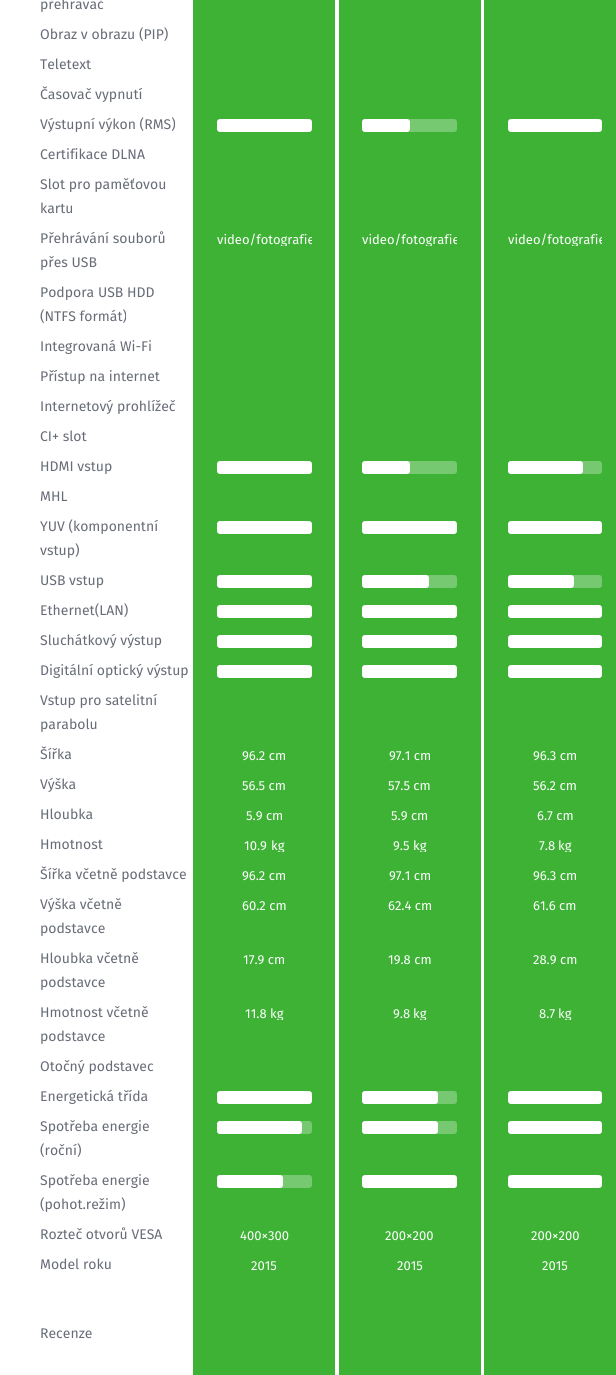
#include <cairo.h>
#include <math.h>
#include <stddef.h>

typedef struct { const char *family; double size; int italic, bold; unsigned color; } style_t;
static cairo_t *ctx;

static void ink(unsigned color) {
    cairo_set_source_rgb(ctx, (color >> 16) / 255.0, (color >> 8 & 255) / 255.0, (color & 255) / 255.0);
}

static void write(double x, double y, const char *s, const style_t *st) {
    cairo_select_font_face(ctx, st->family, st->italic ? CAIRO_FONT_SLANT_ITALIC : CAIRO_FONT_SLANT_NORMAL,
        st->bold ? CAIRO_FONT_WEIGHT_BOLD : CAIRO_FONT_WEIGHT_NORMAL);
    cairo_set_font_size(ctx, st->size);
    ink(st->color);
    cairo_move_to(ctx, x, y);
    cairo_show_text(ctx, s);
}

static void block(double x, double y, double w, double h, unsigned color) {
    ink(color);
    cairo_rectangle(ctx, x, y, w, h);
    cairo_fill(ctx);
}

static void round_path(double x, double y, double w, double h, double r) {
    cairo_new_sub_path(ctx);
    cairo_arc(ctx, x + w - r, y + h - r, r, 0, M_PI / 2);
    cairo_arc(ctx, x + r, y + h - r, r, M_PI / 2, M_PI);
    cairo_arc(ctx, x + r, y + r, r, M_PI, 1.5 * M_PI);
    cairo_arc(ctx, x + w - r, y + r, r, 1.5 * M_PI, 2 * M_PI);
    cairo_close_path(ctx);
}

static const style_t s1 = {"Fira Sans", 14, 0, 0, 0x676c77};
static const style_t s2 = {"Fira Sans", 13, 0, 0, 0xffffff};

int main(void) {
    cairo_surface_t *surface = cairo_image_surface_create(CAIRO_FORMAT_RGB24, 616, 1375);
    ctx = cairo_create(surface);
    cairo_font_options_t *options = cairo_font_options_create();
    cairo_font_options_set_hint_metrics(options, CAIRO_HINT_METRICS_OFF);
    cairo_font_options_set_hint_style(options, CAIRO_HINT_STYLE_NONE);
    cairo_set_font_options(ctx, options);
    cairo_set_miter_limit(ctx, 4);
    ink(0xffffff);
    cairo_paint(ctx);
    write(40, 9, "přehrávač", &s1);
    block(193, 0, 142, 1375, 0x3db235);
    block(339, 0, 142, 1375, 0x3db235);
    block(484, 0, 132, 1375, 0x3db235);
    write(40, 39, "Obraz v obrazu (PIP)", &s1);
    write(40, 69, "Teletext", &s1);
    write(40, 99, "Časovač vypnutí", &s1);
    write(40, 129, "Výstupní výkon (RMS)", &s1);
    ink(0xffffff);
    round_path(217, 119, 95, 13, 3);
    cairo_fill(ctx);
    ink(0x76c871);
    round_path(362, 119, 95, 13, 3);
    cairo_fill(ctx);
    ink(0xffffff);
    round_path(362, 119, 48, 13, 3);
    cairo_fill(ctx);
    round_path(508, 119, 94, 13, 3);
    cairo_fill(ctx);
    write(40, 159, "Certifikace DLNA", &s1);
    write(40, 189, "Slot pro paměťovou", &s1);
    write(40, 213, "kartu", &s1);
    write(40, 243, "Přehrávání souborů", &s1);
    write(40, 267, "přes USB", &s1);
    cairo_save(ctx);
    cairo_rectangle(ctx, 217, 233, 95, 13);
    cairo_clip(ctx);
    write(217, 244, "video/fotografie", &s2);
    cairo_restore(ctx);
    cairo_save(ctx);
    cairo_rectangle(ctx, 362, 233, 95, 13);
    cairo_clip(ctx);
    write(362, 244, "video/fotografie", &s2);
    cairo_restore(ctx);
    cairo_save(ctx);
    cairo_rectangle(ctx, 508, 233, 94, 13);
    cairo_clip(ctx);
    write(508, 244, "video/fotografie", &s2);
    cairo_restore(ctx);
    write(40, 297, "Podpora USB HDD", &s1);
    write(40, 321, "(NTFS formát)", &s1);
    write(40, 351, "Integrovaná Wi-Fi", &s1);
    write(40, 381, "Přístup na internet", &s1);
    write(40, 411, "Internetový prohlížeč", &s1);
    write(40, 441, "CI+ slot", &s1);
    write(40, 471, "HDMI vstup", &s1);
    ink(0xffffff);
    round_path(217, 461, 95, 13, 3);
    cairo_fill(ctx);
    ink(0x76c871);
    round_path(362, 461, 95, 13, 3);
    cairo_fill(ctx);
    ink(0xffffff);
    round_path(362, 461, 48, 13, 3);
    cairo_fill(ctx);
    ink(0x76c871);
    round_path(508, 461, 94, 13, 3);
    cairo_fill(ctx);
    ink(0xffffff);
    round_path(508, 461, 75, 13, 3);
    cairo_fill(ctx);
    write(40, 501, "MHL", &s1);
    write(40, 531, "YUV (komponentní", &s1);
    write(40, 555, "vstup)", &s1);
    ink(0xffffff);
    round_path(217, 521, 95, 13, 3);
    cairo_fill(ctx);
    round_path(362, 521, 95, 13, 3);
    cairo_fill(ctx);
    round_path(508, 521, 94, 13, 3);
    cairo_fill(ctx);
    write(40, 585, "USB vstup", &s1);
    ink(0xffffff);
    round_path(217, 575, 95, 13, 3);
    cairo_fill(ctx);
    ink(0x76c871);
    round_path(362, 575, 95, 13, 3);
    cairo_fill(ctx);
    ink(0xffffff);
    round_path(362, 575, 67, 13, 3);
    cairo_fill(ctx);
    ink(0x76c871);
    round_path(508, 575, 94, 13, 3);
    cairo_fill(ctx);
    ink(0xffffff);
    round_path(508, 575, 66, 13, 3);
    cairo_fill(ctx);
    write(40, 615, "Ethernet(LAN)", &s1);
    ink(0xffffff);
    round_path(217, 605, 95, 13, 3);
    cairo_fill(ctx);
    round_path(362, 605, 95, 13, 3);
    cairo_fill(ctx);
    round_path(508, 605, 94, 13, 3);
    cairo_fill(ctx);
    write(40, 645, "Sluchátkový výstup", &s1);
    ink(0xffffff);
    round_path(217, 635, 95, 13, 3);
    cairo_fill(ctx);
    round_path(362, 635, 95, 13, 3);
    cairo_fill(ctx);
    round_path(508, 635, 94, 13, 3);
    cairo_fill(ctx);
    write(40, 675, "Digitální optický výstup", &s1);
    ink(0xffffff);
    round_path(217, 665, 95, 13, 3);
    cairo_fill(ctx);
    round_path(362, 665, 95, 13, 3);
    cairo_fill(ctx);
    round_path(508, 665, 94, 13, 3);
    cairo_fill(ctx);
    write(40, 705, "Vstup pro satelitní", &s1);
    write(40, 729, "parabolu", &s1);
    write(40, 759, "Šířka", &s1);
    write(242, 760, "96.2 cm", &s2);
    write(389, 760, "97.1 cm", &s2);
    write(533, 760, "96.3 cm", &s2);
    write(40, 789, "Výška", &s1);
    write(242, 790, "56.5 cm", &s2);
    write(388, 790, "57.5 cm", &s2);
    write(533, 790, "56.2 cm", &s2);
    write(40, 819, "Hloubka", &s1);
    write(246, 820, "5.9 cm", &s2);
    write(391, 820, "5.9 cm", &s2);
    write(537, 820, "6.7 cm", &s2);
    write(40, 849, "Hmotnost", &s1);
    write(244, 850, "10.9", &s2);
    cairo_save(ctx);
    cairo_rectangle(ctx, 217, 839, 95, 13);
    cairo_clip(ctx);
    write(271, 850, "kg", &s2);
    cairo_restore(ctx);
    write(393, 850, "9.5", &s2);
    cairo_save(ctx);
    cairo_rectangle(ctx, 362, 839, 95, 13);
    cairo_clip(ctx);
    write(413, 850, "kg", &s2);
    cairo_restore(ctx);
    write(539, 850, "7.8", &s2);
    cairo_save(ctx);
    cairo_rectangle(ctx, 508, 839, 94, 13);
    cairo_clip(ctx);
    write(558, 850, "kg", &s2);
    cairo_restore(ctx);
    write(40, 879, "Šířka včetně podstavce", &s1);
    write(242, 880, "96.2 cm", &s2);
    write(389, 880, "97.1 cm", &s2);
    write(533, 880, "96.3 cm", &s2);
    write(40, 909, "Výška včetně", &s1);
    write(40, 933, "podstavce", &s1);
    write(242, 910, "60.2 cm", &s2);
    write(388, 910, "62.4 cm", &s2);
    write(533, 910, "61.6 cm", &s2);
    write(40, 963, "Hloubka včetně", &s1);
    write(40, 987, "podstavce", &s1);
    write(243, 964, "17.9 cm", &s2);
    write(388, 964, "19.8 cm", &s2);
    write(533, 964, "28.9 cm", &s2);
    write(40, 1017, "Hmotnost včetně", &s1);
    write(40, 1041, "podstavce", &s1);
    write(245, 1018, "11.8", &s2);
    cairo_save(ctx);
    cairo_rectangle(ctx, 217, 1007, 95, 13);
    cairo_clip(ctx);
    write(270, 1018, "kg", &s2);
    cairo_restore(ctx);
    write(393, 1018, "9.8", &s2);
    cairo_save(ctx);
    cairo_rectangle(ctx, 362, 1007, 95, 13);
    cairo_clip(ctx);
    write(413, 1018, "kg", &s2);
    cairo_restore(ctx);
    write(539, 1018, "8.7", &s2);
    cairo_save(ctx);
    cairo_rectangle(ctx, 508, 1007, 94, 13);
    cairo_clip(ctx);
    write(558, 1018, "kg", &s2);
    cairo_restore(ctx);
    write(40, 1071, "Otočný podstavec", &s1);
    write(40, 1101, "Energetická třída", &s1);
    ink(0xffffff);
    round_path(217, 1091, 95, 13, 3);
    cairo_fill(ctx);
    ink(0x76c871);
    round_path(362, 1091, 95, 13, 3);
    cairo_fill(ctx);
    ink(0xffffff);
    round_path(362, 1091, 76, 13, 3);
    cairo_fill(ctx);
    round_path(508, 1091, 94, 13, 3);
    cairo_fill(ctx);
    write(40, 1131, "Spotřeba energie", &s1);
    write(40, 1155, "(roční)", &s1);
    ink(0x76c871);
    round_path(217, 1121, 95, 13, 3);
    cairo_fill(ctx);
    ink(0xffffff);
    round_path(217, 1121, 85, 13, 3);
    cairo_fill(ctx);
    ink(0x76c871);
    round_path(362, 1121, 95, 13, 3);
    cairo_fill(ctx);
    ink(0xffffff);
    round_path(362, 1121, 76, 13, 3);
    cairo_fill(ctx);
    round_path(508, 1121, 94, 13, 3);
    cairo_fill(ctx);
    write(40, 1185, "Spotřeba energie", &s1);
    write(40, 1209, "(pohot.režim)", &s1);
    ink(0x76c871);
    round_path(217, 1175, 95, 13, 3);
    cairo_fill(ctx);
    ink(0xffffff);
    round_path(217, 1175, 66, 13, 3);
    cairo_fill(ctx);
    round_path(362, 1175, 95, 13, 3);
    cairo_fill(ctx);
    round_path(508, 1175, 94, 13, 3);
    cairo_fill(ctx);
    write(40, 1239, "Rozteč otvorů VESA", &s1);
    write(240, 1240, "400×300", &s2);
    write(385, 1240, "200×200", &s2);
    write(531, 1240, "200×200", &s2);
    write(40, 1269, "Model roku", &s1);
    write(251, 1270, "2015", &s2);
    write(397, 1270, "2015", &s2);
    write(542, 1270, "2015", &s2);
    write(40, 1338, "Recenze", &s1);
    cairo_surface_write_to_png(surface, "screenshot.png");
    cairo_font_options_destroy(options);
    cairo_destroy(ctx);
    cairo_surface_destroy(surface);
    return 0;
}
